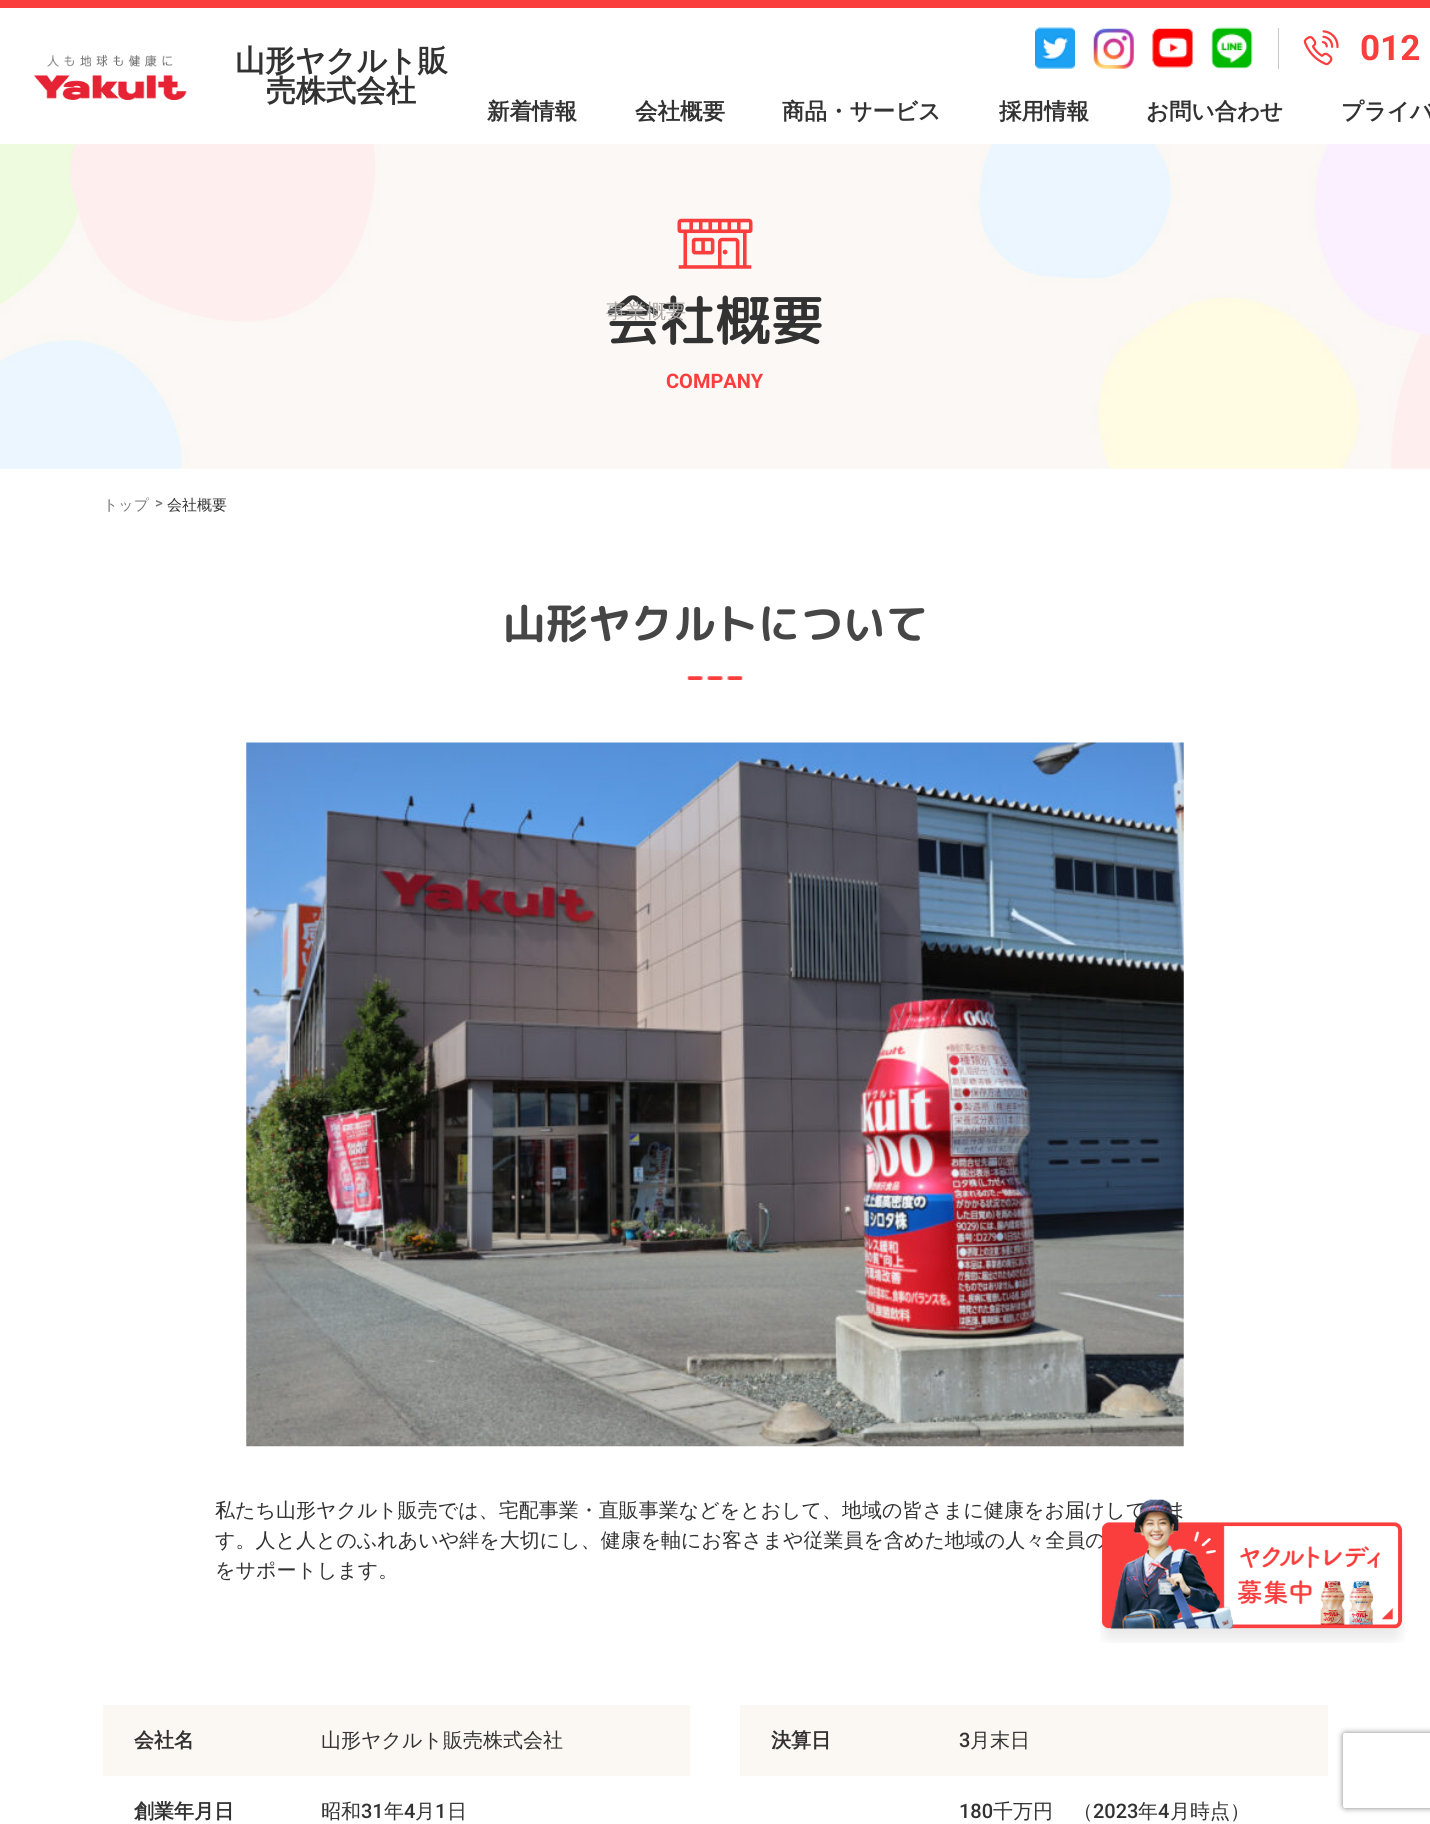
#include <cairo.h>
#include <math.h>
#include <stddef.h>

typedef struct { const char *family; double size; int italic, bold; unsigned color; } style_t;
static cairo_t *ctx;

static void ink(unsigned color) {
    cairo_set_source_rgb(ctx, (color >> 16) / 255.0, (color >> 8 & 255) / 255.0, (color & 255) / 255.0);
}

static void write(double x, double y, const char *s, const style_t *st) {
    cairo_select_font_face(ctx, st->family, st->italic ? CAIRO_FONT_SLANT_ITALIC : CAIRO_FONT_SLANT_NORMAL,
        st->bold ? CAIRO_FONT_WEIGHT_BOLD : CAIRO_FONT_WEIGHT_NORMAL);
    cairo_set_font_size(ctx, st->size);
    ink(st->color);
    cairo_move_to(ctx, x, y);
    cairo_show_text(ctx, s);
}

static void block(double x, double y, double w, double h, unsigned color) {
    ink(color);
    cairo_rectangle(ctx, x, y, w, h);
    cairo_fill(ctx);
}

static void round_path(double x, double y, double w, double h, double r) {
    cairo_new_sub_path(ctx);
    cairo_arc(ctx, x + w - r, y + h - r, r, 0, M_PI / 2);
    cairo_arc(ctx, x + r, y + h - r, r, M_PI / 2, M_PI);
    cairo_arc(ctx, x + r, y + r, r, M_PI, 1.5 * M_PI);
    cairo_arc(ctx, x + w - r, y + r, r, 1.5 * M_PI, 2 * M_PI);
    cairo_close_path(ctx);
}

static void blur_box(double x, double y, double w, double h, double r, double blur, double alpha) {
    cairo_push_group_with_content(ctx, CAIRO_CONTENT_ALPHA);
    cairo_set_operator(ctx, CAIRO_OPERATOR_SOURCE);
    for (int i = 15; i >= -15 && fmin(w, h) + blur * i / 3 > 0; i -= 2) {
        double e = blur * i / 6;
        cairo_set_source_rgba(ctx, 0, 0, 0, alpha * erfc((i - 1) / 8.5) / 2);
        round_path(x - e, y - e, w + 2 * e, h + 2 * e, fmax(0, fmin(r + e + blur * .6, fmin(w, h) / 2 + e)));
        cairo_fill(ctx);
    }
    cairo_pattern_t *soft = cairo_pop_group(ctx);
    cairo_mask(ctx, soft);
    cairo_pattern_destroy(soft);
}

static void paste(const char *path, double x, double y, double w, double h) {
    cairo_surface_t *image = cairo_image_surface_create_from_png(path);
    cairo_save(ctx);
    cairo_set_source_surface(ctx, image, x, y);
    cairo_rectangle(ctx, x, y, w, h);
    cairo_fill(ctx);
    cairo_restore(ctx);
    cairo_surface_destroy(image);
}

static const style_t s1 = {"WenQuanYi Zen Hei", 30, 0, 1, 0x323232};
static const style_t s2 = {"Roboto", 35, 0, 1, 0xfa3e3e};
static const style_t s3 = {"WenQuanYi Zen Hei", 22.5, 0, 1, 0x323232};
static const style_t s4 = {"Rounded Mplus 1c Medium", 55, 0, 0, 0x323232};
static const style_t s5 = {"WenQuanYi Zen Hei Medium", 20, 0, 0, 0xa6a4a2};
static const style_t s6 = {"Roboto", 20, 0, 1, 0xfa3e3e};
static const style_t s7 = {"WenQuanYi Zen Hei Medium", 15, 0, 0, 0x787878};
static const style_t s8 = {"Roboto Medium", 15, 0, 0, 0x787878};
static const style_t s9 = {"WenQuanYi Zen Hei Medium", 15, 0, 0, 0x323232};
static const style_t s10 = {"Rounded Mplus 1c Bold", 42.5, 0, 1, 0x464646};
static const style_t s11 = {"WenQuanYi Zen Hei Medium", 20, 0, 0, 0x323232};
static const style_t s12 = {"WenQuanYi Zen Hei", 20, 0, 1, 0x323232};
static const style_t s13 = {"Roboto Medium", 20, 0, 0, 0x323232};

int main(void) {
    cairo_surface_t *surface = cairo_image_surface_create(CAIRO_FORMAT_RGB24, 1430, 1824);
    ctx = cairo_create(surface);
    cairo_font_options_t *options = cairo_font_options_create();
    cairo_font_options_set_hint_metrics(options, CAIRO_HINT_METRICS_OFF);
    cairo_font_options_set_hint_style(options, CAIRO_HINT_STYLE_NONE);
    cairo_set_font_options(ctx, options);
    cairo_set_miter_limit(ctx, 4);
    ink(0xffffff);
    cairo_paint(ctx);
    block(0, 0, 1430, 8, 0xfa3e3e);
    paste("pic1.png", 33, 55, 154, 45);
    write(235, 71, "山形ヤクルト販", &s1);
    write(266, 101, "売株式会社", &s1);
    block(1278, 28, 1, 41, 0xc8c8c8);
    paste("pic2.png", 1035, 27, 40, 42);
    paste("pic3.png", 1093, 28, 41, 41);
    paste("pic4.png", 1152, 28, 41, 40);
    paste("pic5.png", 1211, 27, 42, 42);
    paste("pic6.png", 1303, 30, 36, 36);
    write(1360, 60, "012", &s2);
    write(487, 119, "新着情報", &s3);
    write(635, 119, "会社概要", &s3);
    paste("pic7.png", 0, 144, 1430, 325);
    write(605, 340, "会社概要", &s4);
    write(606, 318, "事業概要", &s5);
    write(782, 119, "商品・サービス", &s3);
    write(999, 119, "採用情報", &s3);
    write(1146, 119, "お問い合わせ", &s3);
    write(1341, 119, "プライバ", &s3);
    paste("pic8.png", 677, 218, 76, 51);
    write(666, 388, "COMPANY", &s6);
    write(103, 510, "トップ", &s7);
    write(155, 508, ">", &s8);
    write(167, 510, "会社概要", &s9);
    write(503, 639, "山形ヤクルトについて", &s10);
    paste("pic9.png", 687, 676, 56, 4);
    paste("pic10.png", 246, 742, 938, 705);
    write(215, 1517, "私たち山形ヤクルト販売では、宅配事業・直販事業などをとおして、地域の皆さまに健康をお届けしていま", &s11);
    write(215, 1547, "す。人と人とのふれあいや絆を大切にし、健康を軸にお客さまや従業員を含めた地域の人々全員の", &s11);
    write(215, 1577, "をサポートします。", &s11);
    block(103, 1705, 587, 71, 0xfbf8f4);
    write(134, 1747, "会社名", &s12);
    write(321, 1747, "山形ヤクルト販売株式会社", &s11);
    write(134, 1818, "創業年月日", &s12);
    write(321, 1818, "昭和", &s11);
    write(361, 1818, "31", &s13);
    write(384, 1818, "年", &s11);
    write(404, 1818, "4", &s13);
    write(415, 1818, "月", &s11);
    write(435, 1818, "1", &s13);
    write(447, 1818, "日", &s11);
    block(740, 1705, 588, 71, 0xfbf8f4);
    write(771, 1747, "決算日", &s12);
    write(959, 1747, "3", &s13);
    write(970, 1747, "月末日", &s11);
    write(959, 1818, "180", &s13);
    write(993, 1818, "千万円　（", &s11);
    write(1093, 1818, "2023", &s13);
    write(1138, 1818, "年", &s11);
    write(1158, 1818, "4", &s13);
    write(1170, 1818, "月時点）", &s11);
    paste("pic11.png", 1100, 1499, 305, 144);
    cairo_save(ctx);
    cairo_set_fill_rule(ctx, CAIRO_FILL_RULE_EVEN_ODD);
    cairo_new_path(ctx);
    cairo_move_to(ctx, 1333, 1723);
    cairo_line_to(ctx, 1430, 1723);
    cairo_line_to(ctx, 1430, 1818);
    cairo_line_to(ctx, 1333, 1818);
    cairo_close_path(ctx);
    cairo_move_to(ctx, 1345.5, 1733);
    cairo_line_to(ctx, 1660.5, 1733);
    cairo_curve_to(ctx, 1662, 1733, 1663, 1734, 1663, 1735.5);
    cairo_line_to(ctx, 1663, 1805.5);
    cairo_curve_to(ctx, 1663, 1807, 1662, 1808, 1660.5, 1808);
    cairo_line_to(ctx, 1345.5, 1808);
    cairo_curve_to(ctx, 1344, 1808, 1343, 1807, 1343, 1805.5);
    cairo_line_to(ctx, 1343, 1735.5);
    cairo_curve_to(ctx, 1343, 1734, 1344, 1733, 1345.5, 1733);
    cairo_close_path(ctx);
    cairo_clip(ctx);
    ink(0x808080);
    blur_box(1343, 1733, 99, 75, 2.5, 3, 1);
    cairo_restore(ctx);
    cairo_surface_write_to_png(surface, "screenshot.png");
    cairo_font_options_destroy(options);
    cairo_destroy(ctx);
    cairo_surface_destroy(surface);
    return 0;
}
